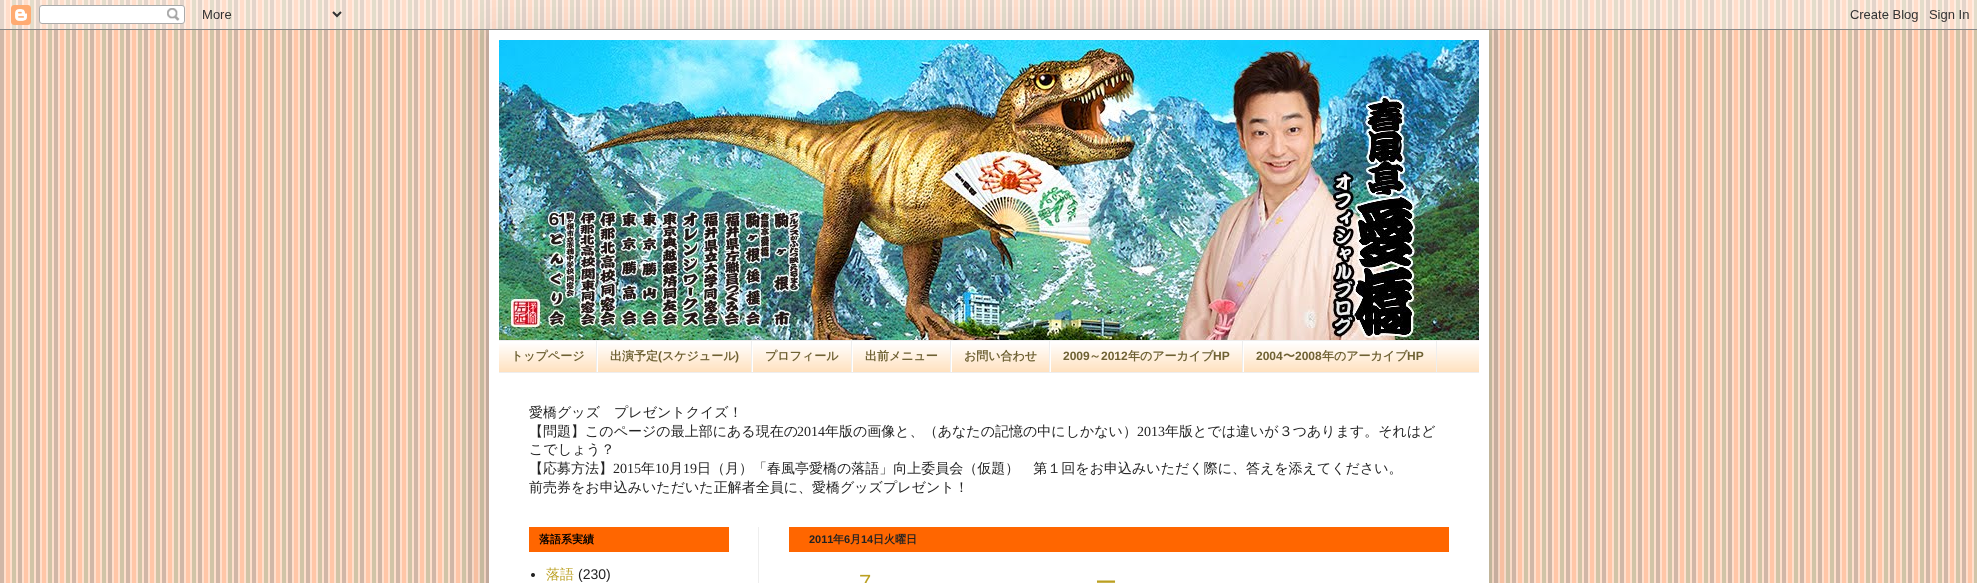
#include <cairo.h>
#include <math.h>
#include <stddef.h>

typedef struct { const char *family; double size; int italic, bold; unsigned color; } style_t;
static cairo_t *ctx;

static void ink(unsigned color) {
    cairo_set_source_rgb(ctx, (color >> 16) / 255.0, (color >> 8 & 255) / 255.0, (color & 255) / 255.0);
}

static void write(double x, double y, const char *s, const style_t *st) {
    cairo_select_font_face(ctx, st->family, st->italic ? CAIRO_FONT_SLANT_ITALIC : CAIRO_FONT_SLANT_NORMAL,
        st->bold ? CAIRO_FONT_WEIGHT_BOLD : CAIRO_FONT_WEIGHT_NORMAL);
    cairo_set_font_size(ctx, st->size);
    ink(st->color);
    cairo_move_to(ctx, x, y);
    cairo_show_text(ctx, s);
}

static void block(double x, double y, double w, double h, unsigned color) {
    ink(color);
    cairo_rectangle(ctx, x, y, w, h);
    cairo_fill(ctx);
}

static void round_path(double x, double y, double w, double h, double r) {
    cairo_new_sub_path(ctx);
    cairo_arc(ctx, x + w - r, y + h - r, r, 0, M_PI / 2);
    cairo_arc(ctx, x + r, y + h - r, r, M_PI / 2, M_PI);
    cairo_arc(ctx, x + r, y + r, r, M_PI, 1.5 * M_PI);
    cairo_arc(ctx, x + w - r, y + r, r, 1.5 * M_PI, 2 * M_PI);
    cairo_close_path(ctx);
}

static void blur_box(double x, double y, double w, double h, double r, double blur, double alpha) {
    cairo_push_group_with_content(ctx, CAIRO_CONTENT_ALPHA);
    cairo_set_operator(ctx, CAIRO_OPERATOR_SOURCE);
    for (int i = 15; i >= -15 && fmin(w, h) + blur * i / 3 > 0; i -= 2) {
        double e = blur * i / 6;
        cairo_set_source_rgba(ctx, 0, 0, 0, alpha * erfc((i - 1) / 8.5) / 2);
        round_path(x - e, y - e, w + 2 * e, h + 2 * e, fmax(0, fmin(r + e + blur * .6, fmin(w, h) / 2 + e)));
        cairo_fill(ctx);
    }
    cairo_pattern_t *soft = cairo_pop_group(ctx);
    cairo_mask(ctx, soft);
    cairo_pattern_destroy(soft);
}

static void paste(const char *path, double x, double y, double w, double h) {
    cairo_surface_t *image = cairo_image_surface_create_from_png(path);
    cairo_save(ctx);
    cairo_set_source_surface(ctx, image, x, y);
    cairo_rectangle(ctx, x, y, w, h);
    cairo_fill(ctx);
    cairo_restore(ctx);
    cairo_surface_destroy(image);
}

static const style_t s1 = {"WenQuanYi Zen Hei", 12, 0, 1, 0x6e6133};
static const style_t s2 = {"Liberation Sans", 12, 0, 1, 0x6e6133};
static const style_t s3 = {"WenQuanYi Zen Hei Medium", 14, 0, 0, 0x222222};
static const style_t s4 = {"Liberation Serif", 14, 0, 0, 0x222222};
static const style_t s5 = {"WenQuanYi Zen Hei", 11, 0, 1, 0x000000};
static const style_t s6 = {"WenQuanYi Zen Hei Medium", 14, 0, 0, 0xbba021};
static const style_t s7 = {"Liberation Sans", 14, 0, 0, 0x222222};
static const style_t s8 = {"Liberation Sans", 11, 0, 1, 0x222222};
static const style_t s9 = {"WenQuanYi Zen Hei", 11, 0, 1, 0x222222};
static const style_t s10 = {"Liberation Sans", 22, 0, 0, 0xbba021};
static const style_t s11 = {"WenQuanYi Zen Hei Medium", 22, 0, 0, 0xbba021};

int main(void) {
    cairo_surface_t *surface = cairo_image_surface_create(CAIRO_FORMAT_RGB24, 1977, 583);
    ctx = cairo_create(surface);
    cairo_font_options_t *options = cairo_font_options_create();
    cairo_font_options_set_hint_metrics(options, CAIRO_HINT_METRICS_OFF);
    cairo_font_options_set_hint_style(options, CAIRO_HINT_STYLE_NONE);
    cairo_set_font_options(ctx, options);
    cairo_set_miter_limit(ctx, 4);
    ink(0xffffff);
    cairo_paint(ctx);
    paste("pic1.png", 0, 0, 1977, 583);
    ink(0x000000);
    blur_box(489, 30, 1000, 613, 0, 20, 0.15);
    paste("pic2.png", 0, 0, 1977, 30);
    block(489, 30, 1000, 553, 0xffffff);
    paste("pic3.png", 499, 40, 980, 300);
    block(499, 342, 980, 30, 0xffd9ae);
    paste("pic4.png", 499, 341, 980, 31);
    block(499, 340, 980, 1, 0xeeeeee);
    block(499, 372, 980, 1, 0xeeeeee);
    block(596, 341, 1, 31, 0xeeeeee);
    write(511, 360, "トップページ", &s1);
    block(751, 341, 1, 31, 0xeeeeee);
    block(597, 341, 1, 31, 0xffffff);
    write(610, 360, "出演予定", &s1);
    write(658, 360, "(", &s2);
    write(662, 360, "スケジュール", &s1);
    write(735, 360, ")", &s2);
    block(851, 341, 1, 31, 0xeeeeee);
    block(752, 341, 1, 31, 0xffffff);
    write(765, 360, "プロフィール", &s1);
    block(950, 341, 1, 31, 0xeeeeee);
    block(852, 341, 1, 31, 0xffffff);
    write(865, 360, "出前メニュー", &s1);
    block(1049, 341, 1, 31, 0xeeeeee);
    block(951, 341, 1, 31, 0xffffff);
    write(964, 360, "お問い合わせ", &s1);
    block(1242, 341, 1, 31, 0xeeeeee);
    block(1050, 341, 1, 31, 0xffffff);
    write(1063, 360, "2009", &s2);
    write(1089, 360, "～", &s1);
    write(1101, 360, "2012", &s2);
    write(1128, 360, "年のアーカイブ", &s1);
    write(1213, 360, "HP", &s2);
    block(1436, 341, 1, 31, 0xeeeeee);
    block(1243, 341, 1, 31, 0xffffff);
    write(1256, 360, "2004", &s2);
    write(1283, 360, "〜", &s1);
    write(1295, 360, "2008", &s2);
    write(1322, 360, "年のアーカイブ", &s1);
    write(1407, 360, "HP", &s2);
    write(529, 417, "愛橋グッズ　プレゼントクイズ！", &s3);
    write(529, 436, "【問題】このページの最上部にある現在の", &s3);
    write(797, 436, "2014", &s4);
    write(825, 436, "年版の画像と、（あなたの記憶の中にしかない）", &s3);
    write(1137, 436, "2013", &s4);
    write(1165, 436, "年版とでは違いが３つあります。それはど", &s3);
    write(529, 454, "こでしょう？", &s3);
    write(529, 473, "【応募方法】", &s3);
    write(613, 473, "2015", &s4);
    write(641, 473, "年", &s3);
    write(655, 473, "10", &s4);
    write(669, 473, "月", &s3);
    write(683, 473, "19", &s4);
    write(697, 473, "日（月）「春風亭愛橋の落語」向上委員会（仮題）　第１回をお申込みいただく際に、答えを添えてください。", &s3);
    write(529, 492, "前売券をお申込みいただいた正解者全員に、愛橋グッズプレゼント！", &s3);
    block(758, 527, 1, 56, 0xeeeeee);
    block(529, 527, 200, 25, 0xff6600);
    write(539, 543, "落語系実績", &s5);
    ink(0x222222);
    cairo_new_path(ctx);
    cairo_arc(ctx, 533, 575, 2, 0, 2 * M_PI);
    cairo_fill(ctx);
    write(546, 579, "落語", &s6);
    write(578, 579, "(230)", &s7);
    block(789, 527, 660, 25, 0xff6600);
    write(809, 543, "2011", &s8);
    write(833, 543, "年", &s9);
    write(844, 543, "6", &s8);
    write(850, 543, "月", &s9);
    write(861, 543, "14", &s8);
    write(873, 543, "日火曜日", &s9);
    write(859, 590, "7", &s10);
    write(1095, 590, "ー", &s11);
    cairo_surface_write_to_png(surface, "screenshot.png");
    cairo_font_options_destroy(options);
    cairo_destroy(ctx);
    cairo_surface_destroy(surface);
    return 0;
}
